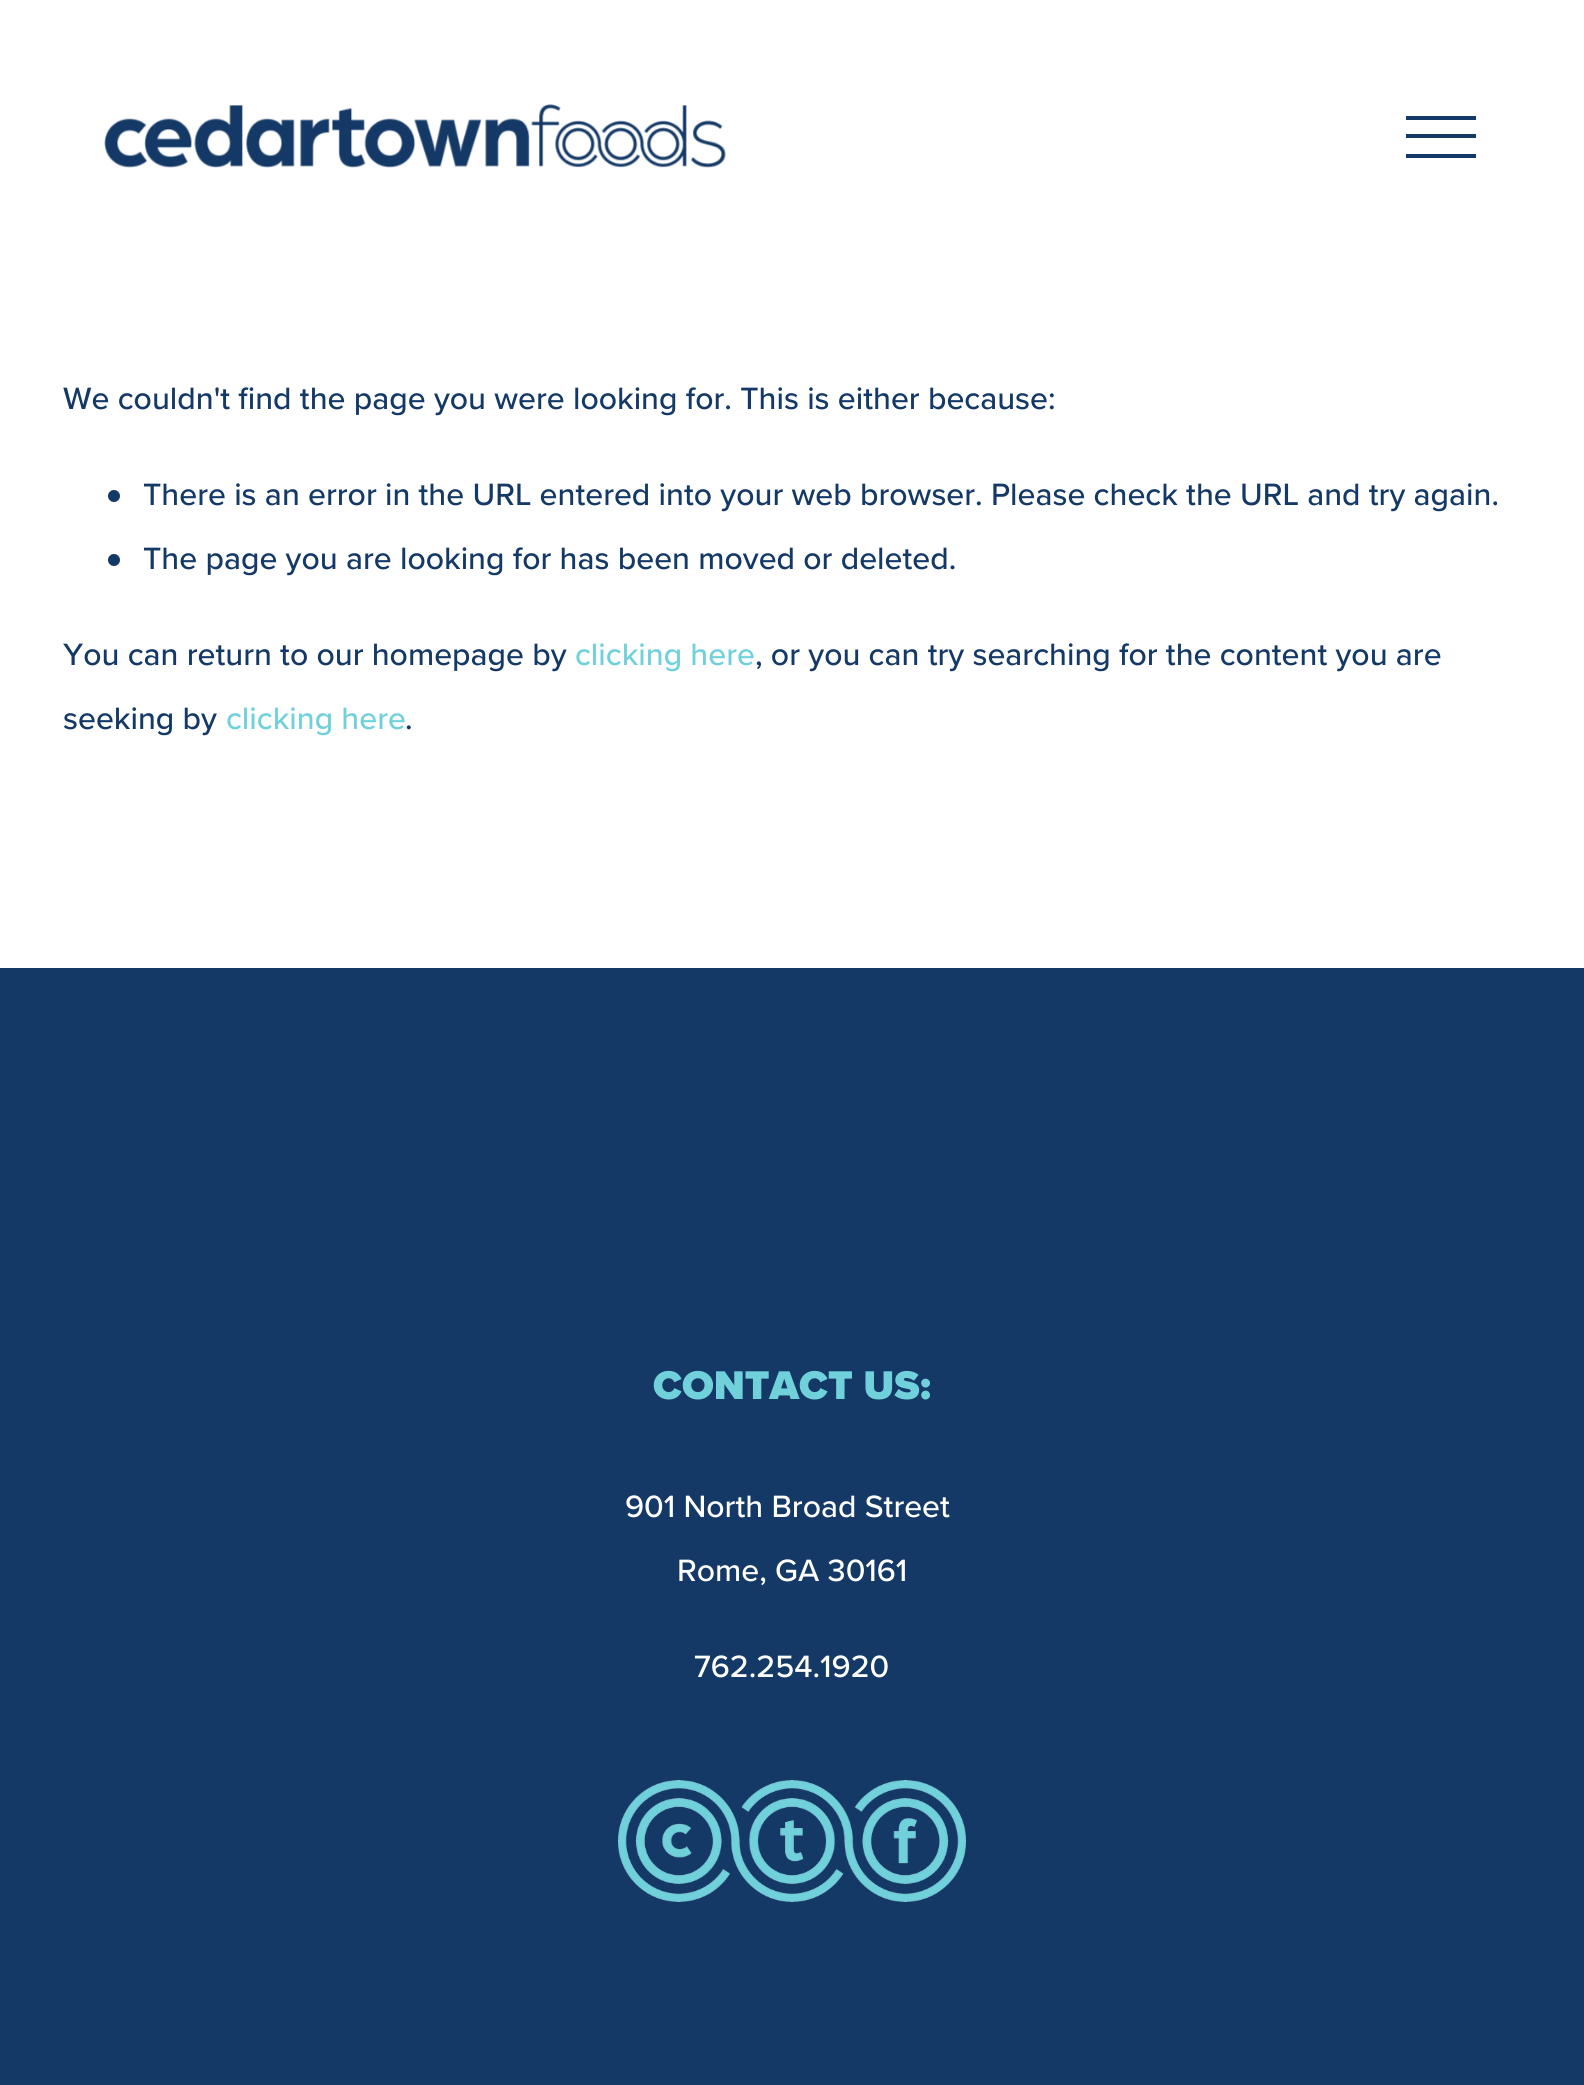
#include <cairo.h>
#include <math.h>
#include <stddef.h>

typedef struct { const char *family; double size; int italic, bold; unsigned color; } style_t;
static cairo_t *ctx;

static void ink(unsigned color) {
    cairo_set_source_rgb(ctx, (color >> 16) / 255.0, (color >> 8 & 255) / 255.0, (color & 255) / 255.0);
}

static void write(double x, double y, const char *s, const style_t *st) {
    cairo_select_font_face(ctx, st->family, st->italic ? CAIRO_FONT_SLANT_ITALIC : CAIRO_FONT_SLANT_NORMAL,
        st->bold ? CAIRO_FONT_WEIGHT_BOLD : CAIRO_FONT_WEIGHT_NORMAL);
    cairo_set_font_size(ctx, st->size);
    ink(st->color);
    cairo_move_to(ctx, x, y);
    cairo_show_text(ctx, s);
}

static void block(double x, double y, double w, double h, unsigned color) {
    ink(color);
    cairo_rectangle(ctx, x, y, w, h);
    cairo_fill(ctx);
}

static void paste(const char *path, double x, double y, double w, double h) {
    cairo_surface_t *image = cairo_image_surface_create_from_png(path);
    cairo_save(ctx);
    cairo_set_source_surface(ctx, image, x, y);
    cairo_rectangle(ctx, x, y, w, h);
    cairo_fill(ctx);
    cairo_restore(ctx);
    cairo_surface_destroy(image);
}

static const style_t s1 = {"Proxima Nova Medium", 32, 0, 0, 0x143966};
static const style_t s2 = {"Proxima Nova Medium", 32, 0, 0, 0x71d1db};
static const style_t s3 = {"Proxima Nova Black", 41.5, 0, 0, 0x71d1db};
static const style_t s4 = {"Proxima Nova Medium", 32, 0, 0, 0xffffff};

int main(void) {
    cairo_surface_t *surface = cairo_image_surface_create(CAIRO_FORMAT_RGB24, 1584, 2085);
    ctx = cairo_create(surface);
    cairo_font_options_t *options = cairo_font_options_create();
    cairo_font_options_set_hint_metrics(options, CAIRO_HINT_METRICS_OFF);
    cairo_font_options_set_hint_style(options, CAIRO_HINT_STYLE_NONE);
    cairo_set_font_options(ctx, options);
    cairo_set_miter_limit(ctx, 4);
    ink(0xffffff);
    cairo_paint(ctx);
    paste("pic1.png", 104, 104, 622, 64);
    block(1406, 116, 70, 4, 0x143966);
    block(1406, 134, 70, 4, 0x143966);
    block(1406, 154, 70, 4, 0x143966);
    write(63, 409, "We couldn't find the page you were looking for. This is either because:", &s1);
    cairo_new_path(ctx);
    cairo_arc(ctx, 114, 496, 6, 0, 2 * M_PI);
    cairo_fill(ctx);
    write(143, 505, "There is an error in the URL entered into your web browser. Please check the URL and try again.", &s1);
    cairo_new_path(ctx);
    cairo_arc(ctx, 114, 560, 6, 0, 2 * M_PI);
    cairo_fill(ctx);
    write(143, 569, "The page you are looking for has been moved or deleted.", &s1);
    write(63, 665, "You can return to our homepage by", &s1);
    write(575, 665, "clicking here", &s2);
    write(755, 665, ", or you can try searching for the content you are", &s1);
    write(63, 729, "seeking by", &s1);
    write(226, 729, "clicking here", &s2);
    write(405, 729, ".", &s1);
    block(0, 968, 1584, 1117, 0x143966);
    write(653, 1399, "CONTACT US:", &s3);
    write(625, 1517, "901 North Broad Street", &s4);
    write(677, 1581, "Rome, GA 30161", &s4);
    write(694, 1677, "762.254.1920", &s4);
    paste("pic2.png", 618, 1780, 348, 122);
    cairo_surface_write_to_png(surface, "screenshot.png");
    cairo_font_options_destroy(options);
    cairo_destroy(ctx);
    cairo_surface_destroy(surface);
    return 0;
}
